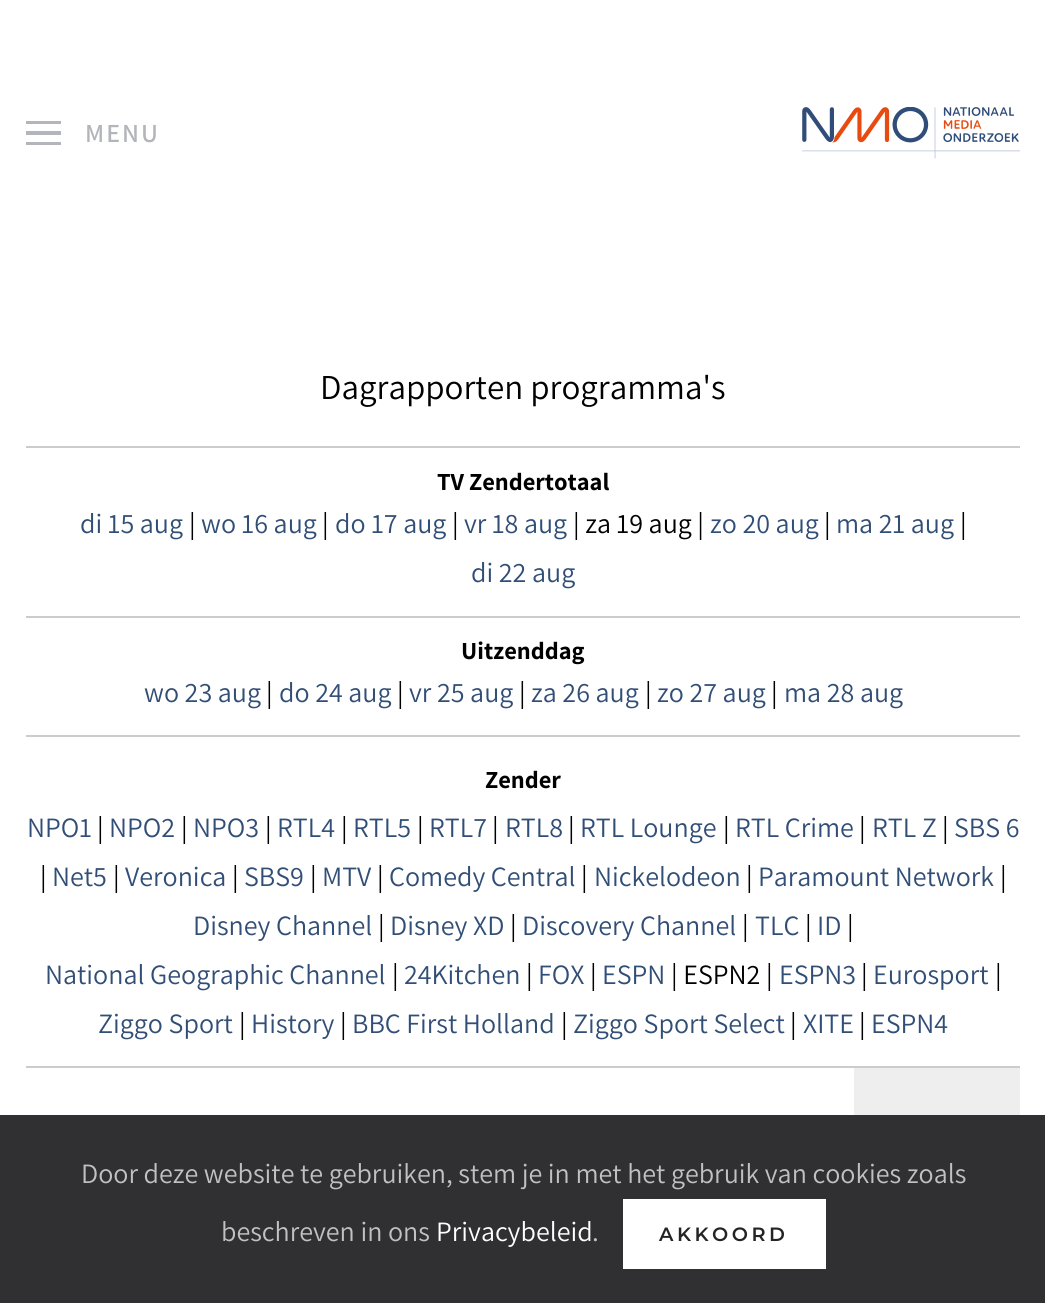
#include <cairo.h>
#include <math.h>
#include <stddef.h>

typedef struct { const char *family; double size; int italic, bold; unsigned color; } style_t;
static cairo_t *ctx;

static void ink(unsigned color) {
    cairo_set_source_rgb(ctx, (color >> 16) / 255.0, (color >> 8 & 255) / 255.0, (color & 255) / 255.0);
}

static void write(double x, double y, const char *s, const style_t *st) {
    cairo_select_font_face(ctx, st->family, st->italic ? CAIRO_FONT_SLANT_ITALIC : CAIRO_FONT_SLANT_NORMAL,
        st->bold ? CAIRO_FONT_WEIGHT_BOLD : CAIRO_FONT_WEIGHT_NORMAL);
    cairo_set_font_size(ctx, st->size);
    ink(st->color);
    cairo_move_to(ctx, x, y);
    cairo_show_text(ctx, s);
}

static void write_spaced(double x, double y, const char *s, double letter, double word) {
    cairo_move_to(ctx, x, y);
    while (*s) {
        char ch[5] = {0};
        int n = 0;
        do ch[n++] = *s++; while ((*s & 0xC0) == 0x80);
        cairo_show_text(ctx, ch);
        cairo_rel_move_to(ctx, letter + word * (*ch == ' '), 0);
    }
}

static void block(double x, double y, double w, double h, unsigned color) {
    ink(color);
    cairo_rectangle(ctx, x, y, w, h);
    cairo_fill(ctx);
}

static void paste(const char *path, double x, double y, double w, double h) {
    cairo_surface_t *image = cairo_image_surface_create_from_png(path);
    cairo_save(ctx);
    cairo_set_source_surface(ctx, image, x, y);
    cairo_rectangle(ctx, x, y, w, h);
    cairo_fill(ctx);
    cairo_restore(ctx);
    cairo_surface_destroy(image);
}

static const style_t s1 = {"Assistant", 35, 0, 0, 0x000000};
static const style_t s2 = {"Assistant", 24.5, 0, 1, 0x000000};
static const style_t s3 = {"Assistant", 28, 0, 0, 0x314e76};
static const style_t s4 = {"Assistant", 28, 0, 0, 0x000000};
static const style_t s5 = {"Assistant", 28, 0, 0, 0xc1c1c2};
static const style_t s6 = {"Assistant", 28, 0, 0, 0xffffff};

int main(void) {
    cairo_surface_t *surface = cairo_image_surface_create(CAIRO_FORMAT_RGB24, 1045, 1303);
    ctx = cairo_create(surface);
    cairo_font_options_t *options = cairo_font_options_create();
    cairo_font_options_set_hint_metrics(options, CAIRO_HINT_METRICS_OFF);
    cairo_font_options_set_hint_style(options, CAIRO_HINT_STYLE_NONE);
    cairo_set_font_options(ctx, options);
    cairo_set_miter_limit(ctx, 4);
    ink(0xffffff);
    cairo_paint(ctx);
    block(26, 121, 35, 3, 0xb4b5ba);
    block(26, 131, 35, 4, 0xb4b5ba);
    block(26, 142, 35, 3, 0xb4b5ba);
    cairo_select_font_face(ctx, "Assistant SemiBold", CAIRO_FONT_SLANT_NORMAL, CAIRO_FONT_WEIGHT_NORMAL);
    cairo_set_font_size(ctx, 26);
    write_spaced(85, 142, "MENU", 2, 0);
    paste("pic1.png", 802, 107, 218, 52);
    write(320, 399, "Dagrapporten programma's", &s1);
    block(26, 446, 994, 2, 0xcccccc);
    block(26, 616, 994, 2, 0xcccccc);
    write(437, 490, "TV Zendertotaal", &s2);
    write(80, 533, "di 15 aug", &s3);
    write(189, 533, "|", &s4);
    write(201, 533, "wo 16 aug", &s3);
    write(322, 533, "|", &s4);
    write(335, 533, "do 17 aug", &s3);
    write(452, 533, "|", &s4);
    write(464, 533, "vr 18 aug", &s3);
    write(573, 533, "| za 19 aug |", &s4);
    write(710, 533, "zo 20 aug", &s3);
    write(824, 533, "|", &s4);
    write(836, 533, "ma 21 aug", &s3);
    write(960, 533, "|", &s4);
    write(471, 582, "di 22 aug", &s3);
    block(26, 735, 994, 2, 0xcccccc);
    write(461, 659, "Uitzenddag", &s2);
    write(144, 702, "wo 23 aug", &s3);
    write(266, 702, "|", &s4);
    write(279, 702, "do 24 aug", &s3);
    write(397, 702, "|", &s4);
    write(409, 702, "vr 25 aug", &s3);
    write(519, 702, "|", &s4);
    write(531, 702, "za 26 aug", &s3);
    write(645, 702, "|", &s4);
    write(657, 702, "zo 27 aug", &s3);
    write(771, 702, "|", &s4);
    write(784, 702, "ma 28 aug", &s3);
    block(26, 1066, 994, 2, 0xcccccc);
    write(485, 788, "Zender", &s2);
    write(27, 837, "NPO1", &s3);
    write(97, 837, "|", &s4);
    write(109, 837, "NPO2", &s3);
    write(181, 837, "|", &s4);
    write(193, 837, "NPO3", &s3);
    write(265, 837, "|", &s4);
    write(277, 837, "RTL4", &s3);
    write(341, 837, "|", &s4);
    write(353, 837, "RTL5", &s3);
    write(417, 837, "|", &s4);
    write(429, 837, "RTL7", &s3);
    write(492, 837, "|", &s4);
    write(505, 837, "RTL8", &s3);
    write(568, 837, "|", &s4);
    write(580, 837, "RTL Lounge", &s3);
    write(723, 837, "|", &s4);
    write(735, 837, "RTL Crime", &s3);
    write(859, 837, "|", &s4);
    write(872, 837, "RTL Z", &s3);
    write(942, 837, "|", &s4);
    write(954, 837, "SBS 6", &s3);
    write(40, 886, "|", &s4);
    write(52, 886, "Net5", &s3);
    write(113, 886, "|", &s4);
    write(125, 886, "Veronica", &s3);
    write(232, 886, "|", &s4);
    write(244, 886, "SBS9", &s3);
    write(310, 886, "|", &s4);
    write(322, 886, "MTV", &s3);
    write(377, 886, "|", &s4);
    write(389, 886, "Comedy Central", &s3);
    write(581, 886, "|", &s4);
    write(594, 886, "Nickelodeon", &s3);
    write(746, 886, "|", &s4);
    write(758, 886, "Paramount Network", &s3);
    write(1000, 886, "|", &s4);
    write(193, 935, "Disney Channel", &s3);
    write(378, 935, "|", &s4);
    write(390, 935, "Disney XD", &s3);
    write(510, 935, "|", &s4);
    write(522, 935, "Discovery Channel", &s3);
    write(742, 935, "|", &s4);
    write(755, 935, "TLC", &s3);
    write(805, 935, "|", &s4);
    write(817, 935, "ID", &s3);
    write(847, 935, "|", &s4);
    write(45, 984, "National Geographic Channel", &s3);
    write(392, 984, "|", &s4);
    write(404, 984, "24Kitchen", &s3);
    write(526, 984, "|", &s4);
    write(538, 984, "FOX", &s3);
    write(590, 984, "|", &s4);
    write(602, 984, "ESPN", &s3);
    write(671, 984, "| ESPN2 |", &s4);
    write(779, 984, "ESPN3", &s3);
    write(861, 984, "|", &s4);
    write(873, 984, "Eurosport", &s3);
    write(995, 984, "|", &s4);
    write(98, 1033, "Ziggo Sport", &s3);
    write(239, 1033, "|", &s4);
    write(251, 1033, "History", &s3);
    write(340, 1033, "|", &s4);
    write(352, 1033, "BBC First Holland", &s3);
    write(561, 1033, "|", &s4);
    write(573, 1033, "Ziggo Sport Select", &s3);
    write(790, 1033, "|", &s4);
    write(803, 1033, "XITE", &s3);
    write(859, 1033, "|", &s4);
    write(871, 1033, "ESPN4", &s3);
    block(854, 1068, 166, 47, 0xeeeeee);
    block(0, 1115, 1045, 188, 0x303033);
    write(81, 1183, "Door deze website te gebruiken, stem je in met het gebruik van cookies zoals", &s5);
    write(221, 1241, "beschreven in ons", &s5);
    write(436, 1241, "Privacybeleid", &s6);
    write(592, 1241, ".", &s5);
    block(623, 1199, 203, 70, 0xffffff);
    cairo_select_font_face(ctx, "Montserrat SemiBold", CAIRO_FONT_SLANT_NORMAL, CAIRO_FONT_WEIGHT_NORMAL);
    cairo_set_font_size(ctx, 19.25);
    ink(0x242427);
    write_spaced(659, 1241, "AKKOORD", 3.5, 0);
    cairo_surface_write_to_png(surface, "screenshot.png");
    cairo_font_options_destroy(options);
    cairo_destroy(ctx);
    cairo_surface_destroy(surface);
    return 0;
}
